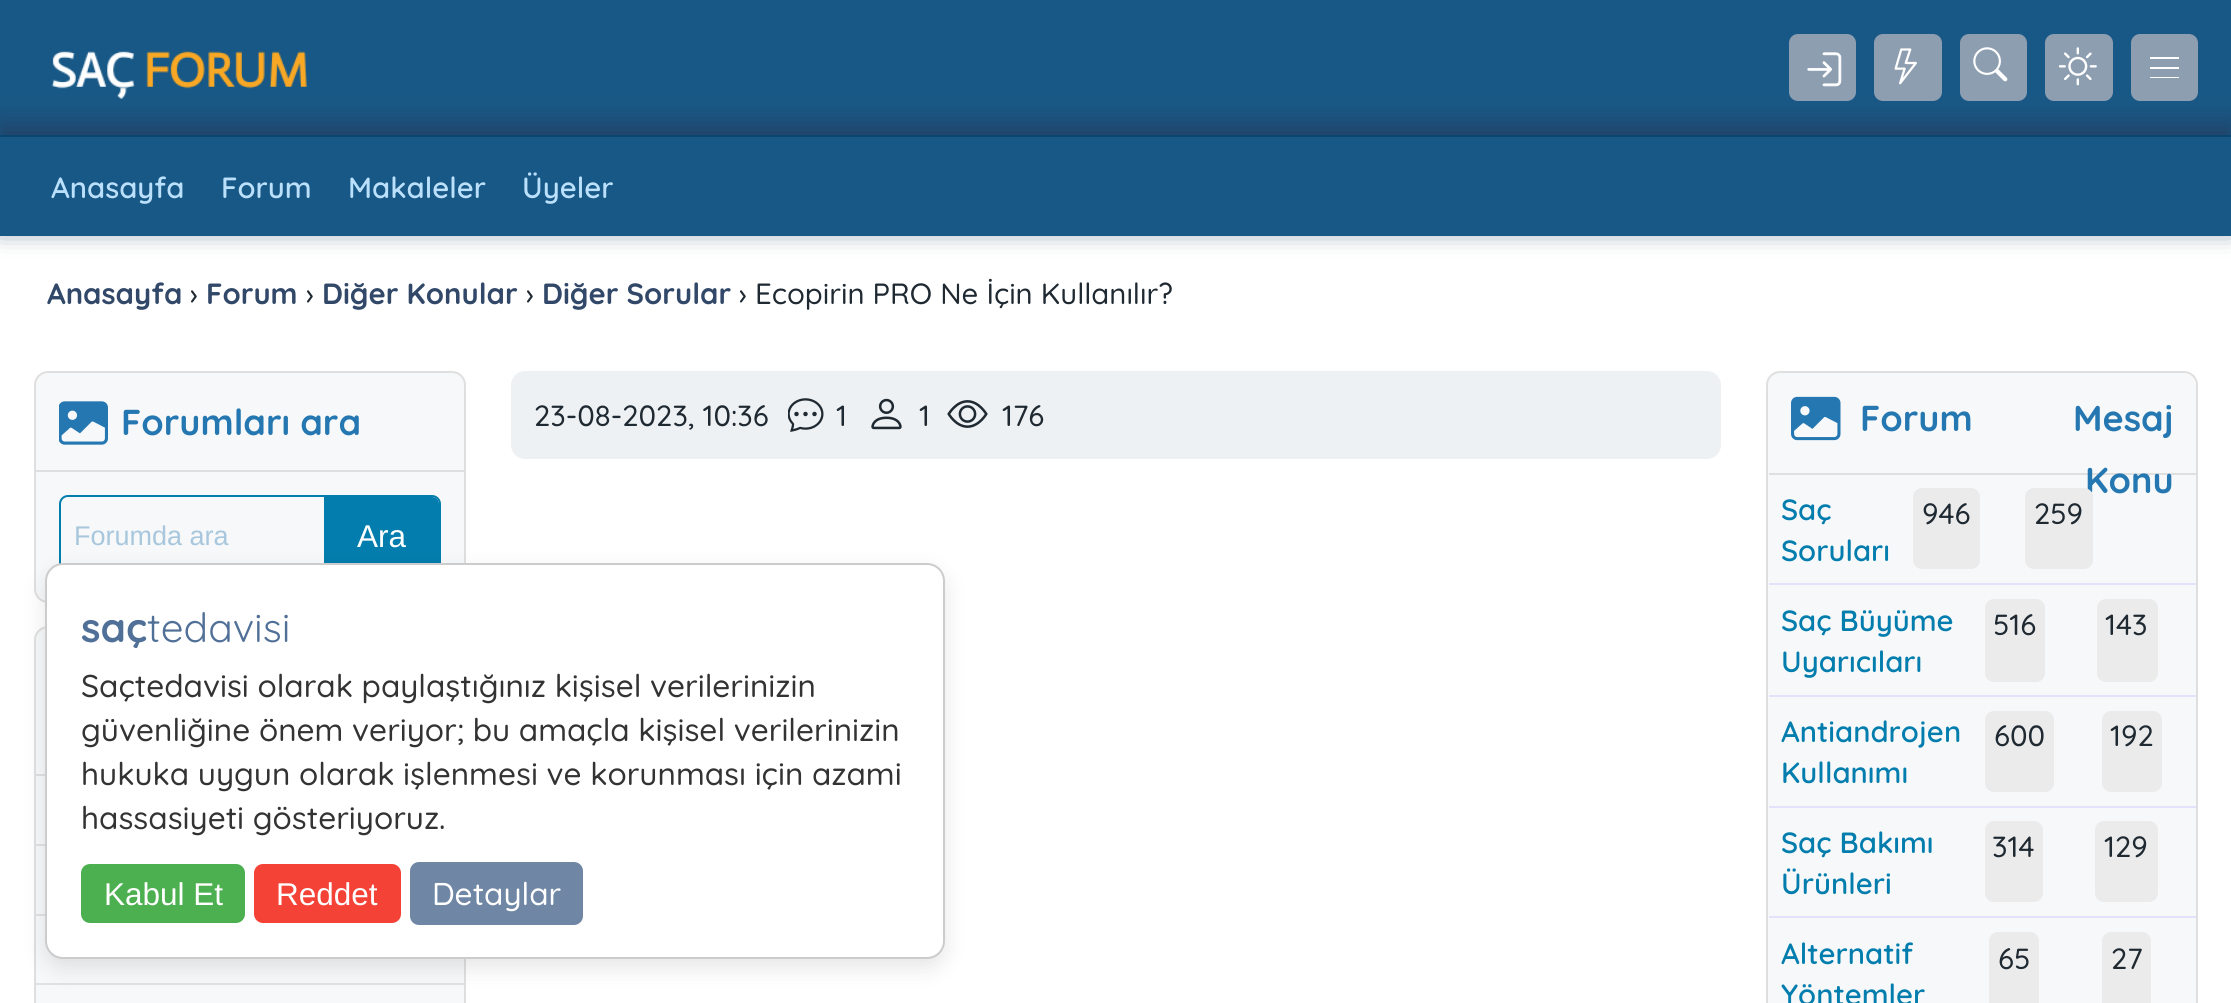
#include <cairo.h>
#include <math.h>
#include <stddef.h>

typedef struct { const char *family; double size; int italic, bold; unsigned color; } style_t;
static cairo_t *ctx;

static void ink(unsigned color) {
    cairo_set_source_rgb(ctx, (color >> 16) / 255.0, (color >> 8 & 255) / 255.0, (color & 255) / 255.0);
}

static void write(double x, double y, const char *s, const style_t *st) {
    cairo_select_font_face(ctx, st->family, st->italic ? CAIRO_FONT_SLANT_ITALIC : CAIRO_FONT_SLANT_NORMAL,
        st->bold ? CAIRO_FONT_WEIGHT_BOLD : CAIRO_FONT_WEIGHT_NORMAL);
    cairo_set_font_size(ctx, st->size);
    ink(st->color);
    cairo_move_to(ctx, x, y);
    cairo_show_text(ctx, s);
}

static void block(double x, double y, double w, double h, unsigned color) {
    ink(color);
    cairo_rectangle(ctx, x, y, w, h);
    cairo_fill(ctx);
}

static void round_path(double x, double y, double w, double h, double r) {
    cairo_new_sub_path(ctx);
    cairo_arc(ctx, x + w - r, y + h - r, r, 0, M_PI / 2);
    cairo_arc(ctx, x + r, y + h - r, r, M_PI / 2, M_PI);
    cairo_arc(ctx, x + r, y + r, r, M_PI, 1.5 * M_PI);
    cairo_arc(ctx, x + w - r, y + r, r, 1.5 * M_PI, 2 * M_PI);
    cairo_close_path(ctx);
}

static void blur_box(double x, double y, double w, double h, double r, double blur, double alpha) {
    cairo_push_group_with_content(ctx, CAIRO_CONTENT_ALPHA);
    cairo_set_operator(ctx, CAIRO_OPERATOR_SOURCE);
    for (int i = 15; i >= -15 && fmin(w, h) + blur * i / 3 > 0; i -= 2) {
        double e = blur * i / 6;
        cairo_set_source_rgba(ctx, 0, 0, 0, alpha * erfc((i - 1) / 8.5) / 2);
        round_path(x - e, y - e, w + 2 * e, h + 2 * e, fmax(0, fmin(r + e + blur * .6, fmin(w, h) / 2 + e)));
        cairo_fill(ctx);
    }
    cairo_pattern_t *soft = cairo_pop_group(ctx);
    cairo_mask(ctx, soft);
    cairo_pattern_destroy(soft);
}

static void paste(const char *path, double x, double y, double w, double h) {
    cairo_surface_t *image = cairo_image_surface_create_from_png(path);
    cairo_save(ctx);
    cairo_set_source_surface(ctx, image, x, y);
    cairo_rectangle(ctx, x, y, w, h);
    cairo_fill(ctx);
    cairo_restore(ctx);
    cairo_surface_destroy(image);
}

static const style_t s1 = {"Quicksand SemiBold", 29.25, 0, 0, 0xbbe0fb};
static const style_t s2 = {"Quicksand", 29.25, 0, 1, 0x324869};
static const style_t s3 = {"Quicksand Medium", 29.25, 0, 0, 0x1f2932};
static const style_t s4 = {"Quicksand", 36, 0, 1, 0x2577b1};
static const style_t s5 = {"Liberation Sans", 27, 0, 0, 0xa8c7dd};
static const style_t s6 = {"Liberation Sans", 31.5, 0, 0, 0xffffff};
static const style_t s7 = {"Quicksand SemiBold", 29.25, 0, 0, 0x027dad};
static const style_t s8 = {"Quicksand", 40.5, 0, 1, 0x517097};
static const style_t s9 = {"Quicksand", 40.5, 0, 0, 0x517097};
static const style_t s10 = {"Quicksand Medium", 31.5, 0, 0, 0x333333};
static const style_t s11 = {"Quicksand Medium", 31.5, 0, 0, 0xffffff};

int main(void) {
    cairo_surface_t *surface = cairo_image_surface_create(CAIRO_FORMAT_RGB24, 2231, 1003);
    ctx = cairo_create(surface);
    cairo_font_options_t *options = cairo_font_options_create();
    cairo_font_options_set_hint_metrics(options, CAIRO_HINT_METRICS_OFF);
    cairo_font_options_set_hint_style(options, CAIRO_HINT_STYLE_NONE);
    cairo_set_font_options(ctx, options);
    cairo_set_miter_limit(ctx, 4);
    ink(0xffffff);
    cairo_paint(ctx);
    block(0, 0, 2231, 135, 0x185886);
    ink(0x224266);
    blur_box(0, 124, 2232, 101, 0, 13.5, 1);
    paste("pic1.png", 51, 51, 256, 48);
    ink(0x8e9eb1);
    round_path(1789, 34, 67, 67, 9);
    cairo_fill(ctx);
    paste("pic2.png", 1807, 52, 35, 35);
    round_path(1874, 34, 68, 67, 9);
    cairo_fill(ctx);
    paste("pic3.png", 1894, 48, 23, 37);
    round_path(1960, 34, 67, 67, 9);
    cairo_fill(ctx);
    paste("pic4.png", 1973, 47, 35, 35);
    round_path(2045, 34, 68, 67, 9);
    cairo_fill(ctx);
    paste("pic5.png", 2059, 47, 38, 39);
    round_path(2131, 34, 67, 67, 9);
    cairo_fill(ctx);
    block(2150, 57, 29, 2, 0xffffff);
    block(2150, 67, 29, 2, 0xffffff);
    block(2150, 77, 29, 1, 0xffffff);
    block(0, 137, 2231, 99, 0x185886);
    block(0, 135, 2231, 2, 0x0a4570);
    write(51, 198, "Anasayfa", &s1);
    write(221, 198, "Forum", &s1);
    write(348, 198, "Makaleler", &s1);
    write(522, 198, "Üyeler", &s1);
    write(47, 304, "Anasayfa", &s2);
    write(190, 304, "›", &s3);
    write(206, 304, "Forum", &s2);
    write(306, 304, "›", &s3);
    write(322, 304, "Diğer Konular", &s2);
    write(526, 304, "›", &s3);
    write(542, 304, "Diğer Sorular", &s2);
    write(739, 304, "› Ecopirin PRO Ne İçin Kullanılır?", &s3);
    ink(0xf6f8f9);
    round_path(35, 372, 430, 230, 13);
    cairo_fill_preserve(ctx);
    ink(0xdfdfdf);
    cairo_stroke(ctx);
    block(36, 470, 428, 2, 0xdfdfdf);
    paste("pic6.png", 59, 401, 49, 44);
    write(121, 435, "Forumları ara", &s4);
    round_path(60, 496, 380, 81, 8);
    ink(0x027dad);
    cairo_stroke(ctx);
    write(74, 545, "Forumda ara", &s5);
    ink(0x027dad);
    cairo_new_path(ctx);
    cairo_move_to(ctx, 324, 497);
    cairo_line_to(ctx, 432, 497);
    cairo_curve_to(ctx, 436, 497, 439, 500, 439, 504);
    cairo_line_to(ctx, 439, 569);
    cairo_curve_to(ctx, 439, 573, 436, 576, 432, 576);
    cairo_line_to(ctx, 324, 576);
    cairo_close_path(ctx);
    cairo_fill(ctx);
    write(357, 547, "Ara", &s6);
    ink(0xf6f8f9);
    round_path(35, 627, 430, 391, 13);
    cairo_fill_preserve(ctx);
    ink(0xdfdfdf);
    cairo_stroke(ctx);
    block(36, 774, 9, 2, 0xdfdfdf);
    block(36, 844, 9, 2, 0xe1e1e1);
    block(36, 914, 9, 2, 0xe1e1e1);
    block(36, 983, 428, 2, 0xe1e1e1);
    ink(0xeef1f3);
    round_path(511, 371, 1210, 88, 14);
    cairo_fill(ctx);
    write(534, 426, "23-08-2023, 10:36", &s3);
    paste("pic7.png", 788, 398, 36, 34);
    write(836, 426, "1", &s3);
    paste("pic8.png", 871, 398, 31, 32);
    write(919, 426, "1", &s3);
    paste("pic9.png", 947, 400, 41, 28);
    write(1002, 426, "176", &s3);
    ink(0xf6f8f9);
    round_path(1767, 372, 430, 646, 13);
    cairo_fill_preserve(ctx);
    ink(0xdfdfdf);
    cairo_stroke(ctx);
    ink(0xf6f8f9);
    round_path(1769, 374, 427, 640, 11);
    cairo_fill(ctx);
    block(1769, 473, 427, 2, 0xdfdfdf);
    paste("pic10.png", 1791, 396, 50, 45);
    write(1860, 431, "Forum", &s4);
    write(2073, 431, "Mesaj", &s4);
    write(2085, 493, "Konu", &s4);
    block(1769, 583, 427, 2, 0xe3e2fd);
    write(1781, 520, "Saç", &s7);
    write(1781, 561, "Soruları", &s7);
    ink(0xebebeb);
    round_path(1913, 488, 67, 81, 9);
    cairo_fill(ctx);
    write(1922, 524, "946", &s3);
    ink(0xebebeb);
    round_path(2025, 488, 68, 81, 9);
    cairo_fill(ctx);
    write(2034, 524, "259", &s3);
    block(1769, 695, 427, 2, 0xe3e2fd);
    write(1781, 631, "Saç Büyüme", &s7);
    write(1781, 672, "Uyarıcıları", &s7);
    ink(0xebebeb);
    round_path(1985, 599, 60, 83, 9);
    cairo_fill(ctx);
    write(1993, 635, "516", &s3);
    ink(0xebebeb);
    round_path(2097, 599, 61, 83, 9);
    cairo_fill(ctx);
    write(2105, 635, "143", &s3);
    block(1769, 806, 427, 2, 0xe3e2fd);
    write(1781, 742, "Antiandrojen", &s7);
    write(1781, 783, "Kullanımı", &s7);
    ink(0xebebeb);
    round_path(1985, 711, 69, 81, 9);
    cairo_fill(ctx);
    write(1994, 746, "600", &s3);
    ink(0xebebeb);
    round_path(2102, 711, 60, 81, 9);
    cairo_fill(ctx);
    write(2110, 746, "192", &s3);
    block(1769, 916, 427, 2, 0xe3e2fd);
    write(1781, 853, "Saç Bakımı", &s7);
    write(1781, 894, "Ürünleri", &s7);
    ink(0xebebeb);
    round_path(1985, 821, 58, 81, 9);
    cairo_fill(ctx);
    write(1992, 857, "314", &s3);
    ink(0xebebeb);
    round_path(2095, 821, 63, 81, 9);
    cairo_fill(ctx);
    write(2104, 857, "129", &s3);
    write(1781, 964, "Alternatif", &s7);
    write(1781, 1005, "Yöntemler", &s7);
    ink(0xebebeb);
    round_path(1989, 932, 50, 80, 9);
    cairo_fill(ctx);
    write(1998, 969, "65", &s3);
    ink(0xebebeb);
    round_path(2102, 932, 49, 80, 9);
    cairo_fill(ctx);
    write(2111, 969, "27", &s3);
    ink(0x000000);
    blur_box(45, 572, 900, 396, 18, 11, 0.1);
    ink(0xffffff);
    round_path(46, 564, 898, 394, 17);
    cairo_fill_preserve(ctx);
    ink(0xcccccc);
    cairo_stroke(ctx);
    write(81, 642, "saç", &s8);
    write(147, 642, "tedavisi", &s9);
    write(81, 697, "Saçtedavisi olarak paylaştığınız kişisel verilerinizin", &s10);
    write(81, 741, "güvenliğine önem veriyor; bu amaçla kişisel verilerinizin", &s10);
    write(81, 785, "hukuka uygun olarak işlenmesi ve korunması için azami", &s10);
    write(81, 829, "hassasiyeti gösteriyoruz.", &s10);
    ink(0x4caf50);
    round_path(81, 864, 164, 59, 9);
    cairo_fill(ctx);
    write(104, 905, "Kabul Et", &s6);
    ink(0xf44336);
    round_path(254, 864, 147, 59, 9);
    cairo_fill(ctx);
    write(276, 905, "Reddet", &s6);
    ink(0x6f87a5);
    round_path(410, 862, 173, 63, 9);
    cairo_fill(ctx);
    write(432, 905, "Detaylar", &s11);
    cairo_surface_write_to_png(surface, "screenshot.png");
    cairo_font_options_destroy(options);
    cairo_destroy(ctx);
    cairo_surface_destroy(surface);
    return 0;
}
